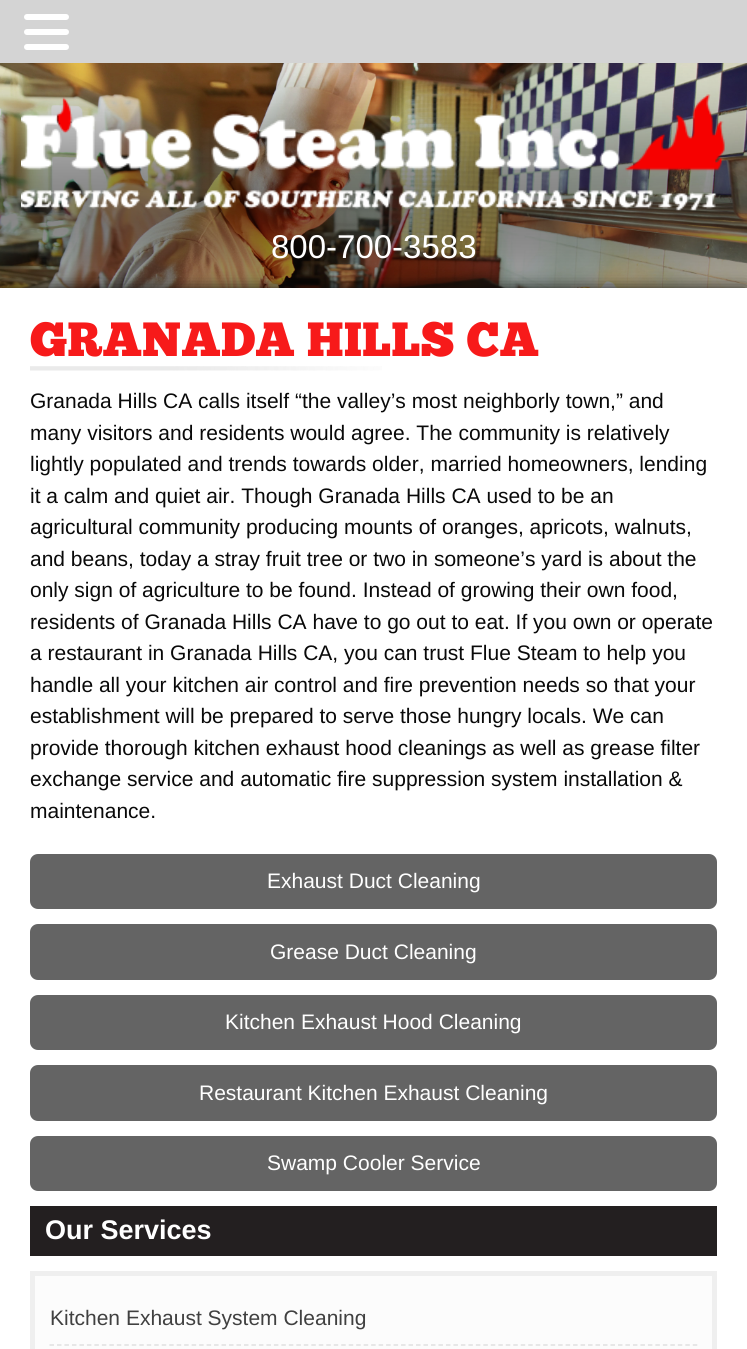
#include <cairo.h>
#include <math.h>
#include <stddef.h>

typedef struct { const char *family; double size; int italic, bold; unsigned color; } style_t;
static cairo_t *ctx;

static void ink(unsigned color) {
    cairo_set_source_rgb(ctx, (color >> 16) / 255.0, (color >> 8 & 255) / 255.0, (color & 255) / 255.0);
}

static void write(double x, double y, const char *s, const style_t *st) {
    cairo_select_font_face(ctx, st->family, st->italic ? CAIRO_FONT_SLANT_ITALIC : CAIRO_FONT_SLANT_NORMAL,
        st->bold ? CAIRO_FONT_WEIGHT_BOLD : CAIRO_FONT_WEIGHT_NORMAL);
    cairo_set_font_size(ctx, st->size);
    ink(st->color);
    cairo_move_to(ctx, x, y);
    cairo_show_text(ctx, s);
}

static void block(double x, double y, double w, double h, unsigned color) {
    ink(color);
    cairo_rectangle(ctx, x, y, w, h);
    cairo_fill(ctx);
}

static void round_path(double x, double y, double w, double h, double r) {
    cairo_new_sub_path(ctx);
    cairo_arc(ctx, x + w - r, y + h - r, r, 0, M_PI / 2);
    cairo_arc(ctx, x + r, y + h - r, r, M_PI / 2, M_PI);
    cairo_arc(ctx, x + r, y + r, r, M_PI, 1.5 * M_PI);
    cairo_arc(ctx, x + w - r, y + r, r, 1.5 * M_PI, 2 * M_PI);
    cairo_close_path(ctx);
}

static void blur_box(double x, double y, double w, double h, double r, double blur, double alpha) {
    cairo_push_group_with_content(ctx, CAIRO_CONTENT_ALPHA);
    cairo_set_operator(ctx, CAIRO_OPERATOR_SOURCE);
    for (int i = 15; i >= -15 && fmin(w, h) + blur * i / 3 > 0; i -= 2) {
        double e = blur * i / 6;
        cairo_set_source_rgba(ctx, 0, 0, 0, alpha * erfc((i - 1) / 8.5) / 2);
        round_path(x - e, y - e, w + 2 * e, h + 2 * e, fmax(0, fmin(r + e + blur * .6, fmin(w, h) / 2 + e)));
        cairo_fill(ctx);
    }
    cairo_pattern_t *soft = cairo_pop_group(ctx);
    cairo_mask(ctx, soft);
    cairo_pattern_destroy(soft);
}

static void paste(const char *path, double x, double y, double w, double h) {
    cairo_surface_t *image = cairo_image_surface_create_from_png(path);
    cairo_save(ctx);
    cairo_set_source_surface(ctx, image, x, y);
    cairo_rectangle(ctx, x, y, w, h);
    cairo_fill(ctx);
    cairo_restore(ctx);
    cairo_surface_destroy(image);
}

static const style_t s1 = {"Liberation Sans", 33, 0, 0, 0xffffff};
static const style_t s2 = {"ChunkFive", 48, 0, 0, 0xf71a1a};
static const style_t s3 = {"Liberation Sans", 21, 0, 0, 0x090909};
static const style_t s4 = {"Liberation Sans", 21, 0, 0, 0xffffff};
static const style_t s5 = {"Liberation Sans", 27, 0, 1, 0xffffff};
static const style_t s6 = {"Liberation Sans", 21, 0, 0, 0x404040};

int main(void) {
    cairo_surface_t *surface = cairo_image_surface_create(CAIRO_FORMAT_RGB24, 747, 1349);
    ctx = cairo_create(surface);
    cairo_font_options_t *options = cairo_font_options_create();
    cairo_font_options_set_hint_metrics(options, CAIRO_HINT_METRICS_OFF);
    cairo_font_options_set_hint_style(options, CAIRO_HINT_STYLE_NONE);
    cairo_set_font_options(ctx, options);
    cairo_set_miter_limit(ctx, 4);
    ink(0xffffff);
    cairo_paint(ctx);
    paste("pic1.png", 0, 63, 747, 225);
    block(0, 0, 747, 63, 0xd4d4d4);
    ink(0xffffff);
    round_path(24, 14, 45, 6, 3);
    cairo_fill(ctx);
    round_path(24, 29, 45, 6, 3);
    cairo_fill(ctx);
    round_path(24, 44, 45, 6, 3);
    cairo_fill(ctx);
    paste("pic2.png", 0, 63, 747, 225);
    paste("pic3.png", 21, 94, 704, 117);
    write(271, 258, "800-700-3583", &s1);
    ink(0x0a0a0a);
    blur_box(0, 288, 747, 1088, 0, 9, 0.9);
    block(0, 288, 747, 1061, 0xffffff);
    paste("pic4.png", 30, 366, 352, 5);
    write(30, 356, "GRANADA HILLS CA", &s2);
    write(30, 408, "Granada Hills CA calls itself “the valley’s most neighborly town,” and", &s3);
    write(30, 440, "many visitors and residents would agree. The community is relatively", &s3);
    write(30, 471, "lightly populated and trends towards older, married homeowners, lending", &s3);
    write(30, 503, "it a calm and quiet air. Though Granada Hills CA used to be an", &s3);
    write(30, 534, "agricultural community producing mounts of oranges, apricots, walnuts,", &s3);
    write(30, 566, "and beans, today a stray fruit tree or two in someone’s yard is about the", &s3);
    write(30, 597, "only sign of agriculture to be found. Instead of growing their own food,", &s3);
    write(30, 629, "residents of Granada Hills CA have to go out to eat. If you own or operate", &s3);
    write(30, 660, "a restaurant in Granada Hills CA, you can trust Flue Steam to help you", &s3);
    write(30, 692, "handle all your kitchen air control and fire prevention needs so that your", &s3);
    write(30, 723, "establishment will be prepared to serve those hungry locals. We can", &s3);
    write(30, 755, "provide thorough kitchen exhaust hood cleanings as well as grease filter", &s3);
    write(30, 786, "exchange service and automatic fire suppression system installation &", &s3);
    write(30, 818, "maintenance.", &s3);
    ink(0x646464);
    round_path(30, 854, 687, 55, 8);
    cairo_fill(ctx);
    write(267, 888, "Exhaust Duct Cleaning", &s4);
    ink(0x646464);
    round_path(30, 924, 687, 56, 8);
    cairo_fill(ctx);
    write(270, 959, "Grease Duct Cleaning", &s4);
    ink(0x646464);
    round_path(30, 995, 687, 55, 8);
    cairo_fill(ctx);
    write(225, 1029, "Kitchen Exhaust Hood Cleaning", &s4);
    ink(0x646464);
    round_path(30, 1065, 687, 56, 8);
    cairo_fill(ctx);
    write(199, 1100, "Restaurant Kitchen Exhaust Cleaning", &s4);
    ink(0x646464);
    round_path(30, 1136, 687, 55, 8);
    cairo_fill(ctx);
    write(267, 1170, "Swamp Cooler Service", &s4);
    block(30, 1206, 687, 50, 0x231f20);
    write(45, 1239, "Our Services", &s5);
    ink(0xfcfcfc);
    cairo_rectangle(ctx, 32.5, 1273.5, 682, 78);
    cairo_fill_preserve(ctx);
    ink(0xefefef);
    cairo_set_line_width(ctx, 5);
    cairo_stroke(ctx);
    cairo_new_path(ctx);
    cairo_move_to(ctx, 49.5, 1345);
    cairo_line_to(ctx, 697.5, 1345);
    ink(0xe0e0e0);
    cairo_set_line_width(ctx, 1.5);
    cairo_set_dash(ctx, (double[]){4.5, 2.98}, 2, 0);
    cairo_stroke(ctx);
    write(50, 1325, "Kitchen Exhaust System Cleaning", &s6);
    cairo_surface_write_to_png(surface, "screenshot.png");
    cairo_font_options_destroy(options);
    cairo_destroy(ctx);
    cairo_surface_destroy(surface);
    return 0;
}
